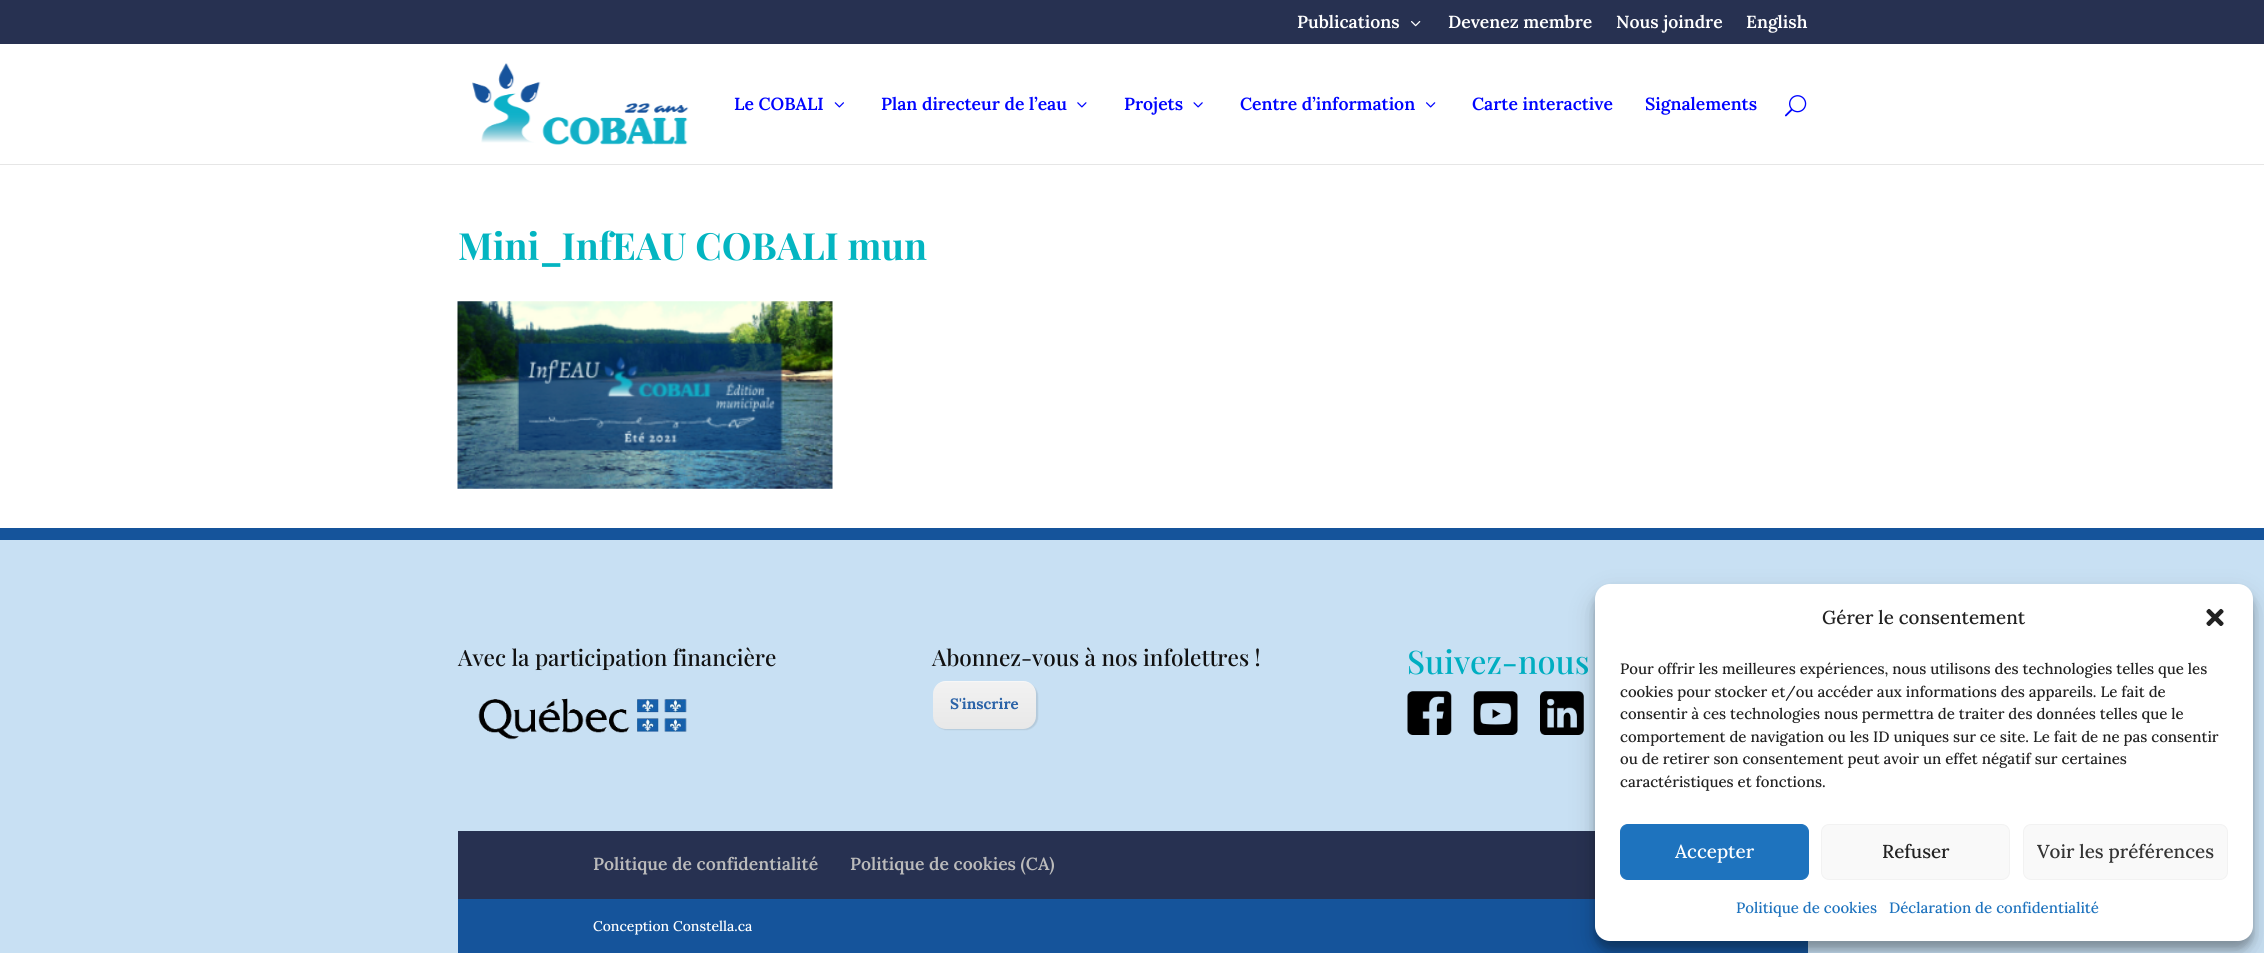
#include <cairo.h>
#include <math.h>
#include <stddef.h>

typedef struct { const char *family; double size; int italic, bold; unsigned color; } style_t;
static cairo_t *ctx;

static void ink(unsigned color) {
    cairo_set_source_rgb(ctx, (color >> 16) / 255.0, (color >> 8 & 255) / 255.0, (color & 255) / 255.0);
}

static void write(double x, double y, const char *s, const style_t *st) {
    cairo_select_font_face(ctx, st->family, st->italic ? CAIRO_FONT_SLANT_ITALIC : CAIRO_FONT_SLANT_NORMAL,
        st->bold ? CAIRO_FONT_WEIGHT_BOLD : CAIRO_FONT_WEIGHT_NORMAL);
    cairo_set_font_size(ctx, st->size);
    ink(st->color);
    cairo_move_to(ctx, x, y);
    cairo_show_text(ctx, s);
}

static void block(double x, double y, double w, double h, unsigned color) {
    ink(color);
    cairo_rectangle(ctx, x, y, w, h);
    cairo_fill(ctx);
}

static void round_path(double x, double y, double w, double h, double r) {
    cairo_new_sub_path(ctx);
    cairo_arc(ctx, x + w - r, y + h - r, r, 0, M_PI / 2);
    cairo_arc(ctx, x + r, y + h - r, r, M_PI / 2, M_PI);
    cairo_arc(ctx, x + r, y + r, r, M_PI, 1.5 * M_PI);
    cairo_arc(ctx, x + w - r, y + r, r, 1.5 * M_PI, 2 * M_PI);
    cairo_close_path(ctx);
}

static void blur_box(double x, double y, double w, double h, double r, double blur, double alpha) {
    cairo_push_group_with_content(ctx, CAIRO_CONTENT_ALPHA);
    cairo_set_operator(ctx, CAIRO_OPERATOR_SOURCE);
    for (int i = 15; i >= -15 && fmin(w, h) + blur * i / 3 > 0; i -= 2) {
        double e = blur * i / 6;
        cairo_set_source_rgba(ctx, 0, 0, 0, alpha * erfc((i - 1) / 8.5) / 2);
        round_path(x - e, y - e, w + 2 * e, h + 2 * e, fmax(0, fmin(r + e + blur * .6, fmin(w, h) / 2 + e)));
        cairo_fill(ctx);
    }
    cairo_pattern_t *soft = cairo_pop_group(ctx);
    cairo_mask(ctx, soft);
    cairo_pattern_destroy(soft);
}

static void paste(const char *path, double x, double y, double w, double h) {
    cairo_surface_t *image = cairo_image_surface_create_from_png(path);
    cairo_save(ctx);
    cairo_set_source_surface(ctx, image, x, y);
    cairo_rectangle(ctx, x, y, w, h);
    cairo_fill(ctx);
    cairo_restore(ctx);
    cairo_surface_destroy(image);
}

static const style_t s1 = {"Lora SemiBold", 17.5, 0, 0, 0xffffff};
static const style_t s2 = {"Lora SemiBold", 17.5, 0, 0, 0x0004ff};
static const style_t s3 = {"Playfair Display", 37.5, 0, 1, 0x03b5c1};
static const style_t s4 = {"Playfair Display Medium", 22.5, 0, 0, 0x111111};
static const style_t s5 = {"Lora", 15, 0, 1, 0x2b63a8};
static const style_t s6 = {"Playfair Display Medium", 32.5, 0, 0, 0x00aec1};
static const style_t s7 = {"Lora SemiBold", 17.5, 0, 0, 0xbbbbbb};
static const style_t s8 = {"Lora Medium", 14, 0, 0, 0xffffff};
static const style_t s9 = {"Lora Medium", 18.75, 0, 0, 0x222222};
static const style_t s10 = {"Lora Medium", 15, 0, 0, 0x222222};
static const style_t s11 = {"Lora Medium", 18.75, 0, 0, 0xffffff};
static const style_t s12 = {"Lora Medium", 18.75, 0, 0, 0x333333};
static const style_t s13 = {"Lora Medium", 15, 0, 0, 0x1e73be};

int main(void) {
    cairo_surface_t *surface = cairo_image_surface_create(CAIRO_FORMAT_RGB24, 2264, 953);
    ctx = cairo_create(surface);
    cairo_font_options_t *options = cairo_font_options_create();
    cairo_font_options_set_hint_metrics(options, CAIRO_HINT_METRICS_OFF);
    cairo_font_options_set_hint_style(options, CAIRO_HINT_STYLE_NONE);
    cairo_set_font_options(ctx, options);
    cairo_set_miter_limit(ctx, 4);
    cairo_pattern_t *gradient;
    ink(0xffffff);
    cairo_paint(ctx);
    block(0, 0, 2264, 44, 0x273151);
    write(1297, 28, "Publications", &s1);
    paste("pic1.png", 1411, 21, 10, 6);
    write(1448, 28, "Devenez membre", &s1);
    write(1616, 28, "Nous joindre", &s1);
    write(1746, 28, "English", &s1);
    block(0, 164, 2264, 1, 0xe6e6e6);
    paste("pic2.png", 472, 63, 217, 82);
    write(734, 110, "Le COBALI", &s2);
    paste("pic3.png", 834, 102, 10, 6);
    write(881, 110, "Plan directeur de l’eau", &s2);
    paste("pic4.png", 1077, 102, 10, 6);
    write(1124, 110, "Projets", &s2);
    paste("pic5.png", 1193, 102, 10, 6);
    write(1240, 110, "Centre d’information", &s2);
    paste("pic6.png", 1426, 102, 10, 6);
    write(1472, 110, "Carte interactive", &s2);
    write(1645, 110, "Signalements", &s2);
    paste("pic7.png", 1785, 95, 22, 22);
    write(458, 260, "Mini_InfEAU COBALI mun", &s3);
    paste("pic8.png", 457, 301, 376, 188);
    block(0, 540, 2264, 413, 0xc8e0f3);
    block(0, 528, 2264, 12, 0x15549b);
    write(458, 666, "Avec la participation financière", &s4);
    paste("pic9.png", 478, 698, 209, 42);
    write(932, 666, "Abonnez-vous à nos infolettres !", &s4);
    ink(0x000000);
    blur_box(934, 683, 104, 47, 13, 0.5, 0.1);
    gradient = cairo_pattern_create_linear(984, 681, 984, 729);
    cairo_pattern_add_color_stop_rgba(gradient, 0, 0.949, 0.949, 0.949, 1);
    cairo_pattern_add_color_stop_rgba(gradient, 1, 0.91, 0.91, 0.91, 1);
    cairo_set_source(ctx, gradient);
    cairo_pattern_destroy(gradient);
    round_path(933, 681, 103, 48, 13);
    cairo_fill(ctx);
    cairo_set_source_rgba(ctx, 1, 1, 1, 0.4);
    cairo_new_path(ctx);
    cairo_move_to(ctx, 945, 682);
    cairo_line_to(ctx, 1024, 682);
    cairo_curve_to(ctx, 1031, 682, 1036, 688, 1036, 695);
    cairo_line_to(ctx, 1036, 694);
    cairo_curve_to(ctx, 1036, 687, 1030, 681, 1023, 681);
    cairo_line_to(ctx, 946, 681);
    cairo_curve_to(ctx, 942, 681, 938, 683, 936, 686);
    cairo_curve_to(ctx, 938, 684, 941, 682, 945, 682);
    cairo_close_path(ctx);
    cairo_fill(ctx);
    write(950, 709, "S'inscrire", &s5);
    write(1407, 674, "Suivez-nous", &s6);
    paste("pic10.png", 1407, 691, 45, 44);
    paste("pic11.png", 1473, 691, 45, 44);
    paste("pic12.png", 1540, 691, 44, 44);
    block(458, 831, 1137, 68, 0x273151);
    write(593, 870, "Politique de confidentialité", &s7);
    write(850, 870, "Politique de cookies (CA)", &s7);
    block(458, 899, 1350, 54, 0x15549b);
    write(593, 931, "Conception Constella.ca", &s8);
    ink(0x000000);
    blur_box(1595, 591, 658, 358, 15, 4, 0.23);
    blur_box(1595, 596, 658, 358, 15, 12.5, 0.19);
    ink(0xffffff);
    round_path(1595, 584, 658, 357, 15);
    cairo_fill(ctx);
    write(1822, 624, "Gérer le consentement", &s9);
    paste("pic13.png", 2206, 608, 18, 18);
    write(1620, 674, "Pour offrir les meilleures expériences, nous utilisons des technologies telles que les", &s10);
    write(1620, 697, "cookies pour stocker et/ou accéder aux informations des appareils. Le fait de", &s10);
    write(1620, 719, "consentir à ces technologies nous permettra de traiter des données telles que le", &s10);
    write(1620, 742, "comportement de navigation ou les ID uniques sur ce site. Le fait de ne pas consentir", &s10);
    write(1620, 764, "ou de retirer son consentement peut avoir un effet négatif sur certaines", &s10);
    write(1620, 787, "caractéristiques et fonctions.", &s10);
    ink(0x1e73be);
    round_path(1620.5, 824.5, 188, 55, 7.5);
    cairo_fill_preserve(ctx);
    cairo_set_line_width(ctx, 1);
    cairo_stroke(ctx);
    write(1675, 858, "Accepter", &s11);
    ink(0xf9f9f9);
    round_path(1821.5, 824.5, 188, 55, 7.5);
    cairo_fill_preserve(ctx);
    ink(0xf2f2f2);
    cairo_stroke(ctx);
    write(1882, 858, "Refuser", &s9);
    ink(0xf9f9f9);
    round_path(2023.5, 824.5, 204, 55, 7.5);
    cairo_fill_preserve(ctx);
    ink(0xf2f2f2);
    cairo_stroke(ctx);
    write(2037, 858, "Voir les préférences", &s12);
    write(1736, 913, "Politique de cookies", &s13);
    write(1889, 913, "Déclaration de confidentialité", &s13);
    cairo_surface_write_to_png(surface, "screenshot.png");
    cairo_font_options_destroy(options);
    cairo_destroy(ctx);
    cairo_surface_destroy(surface);
    return 0;
}
